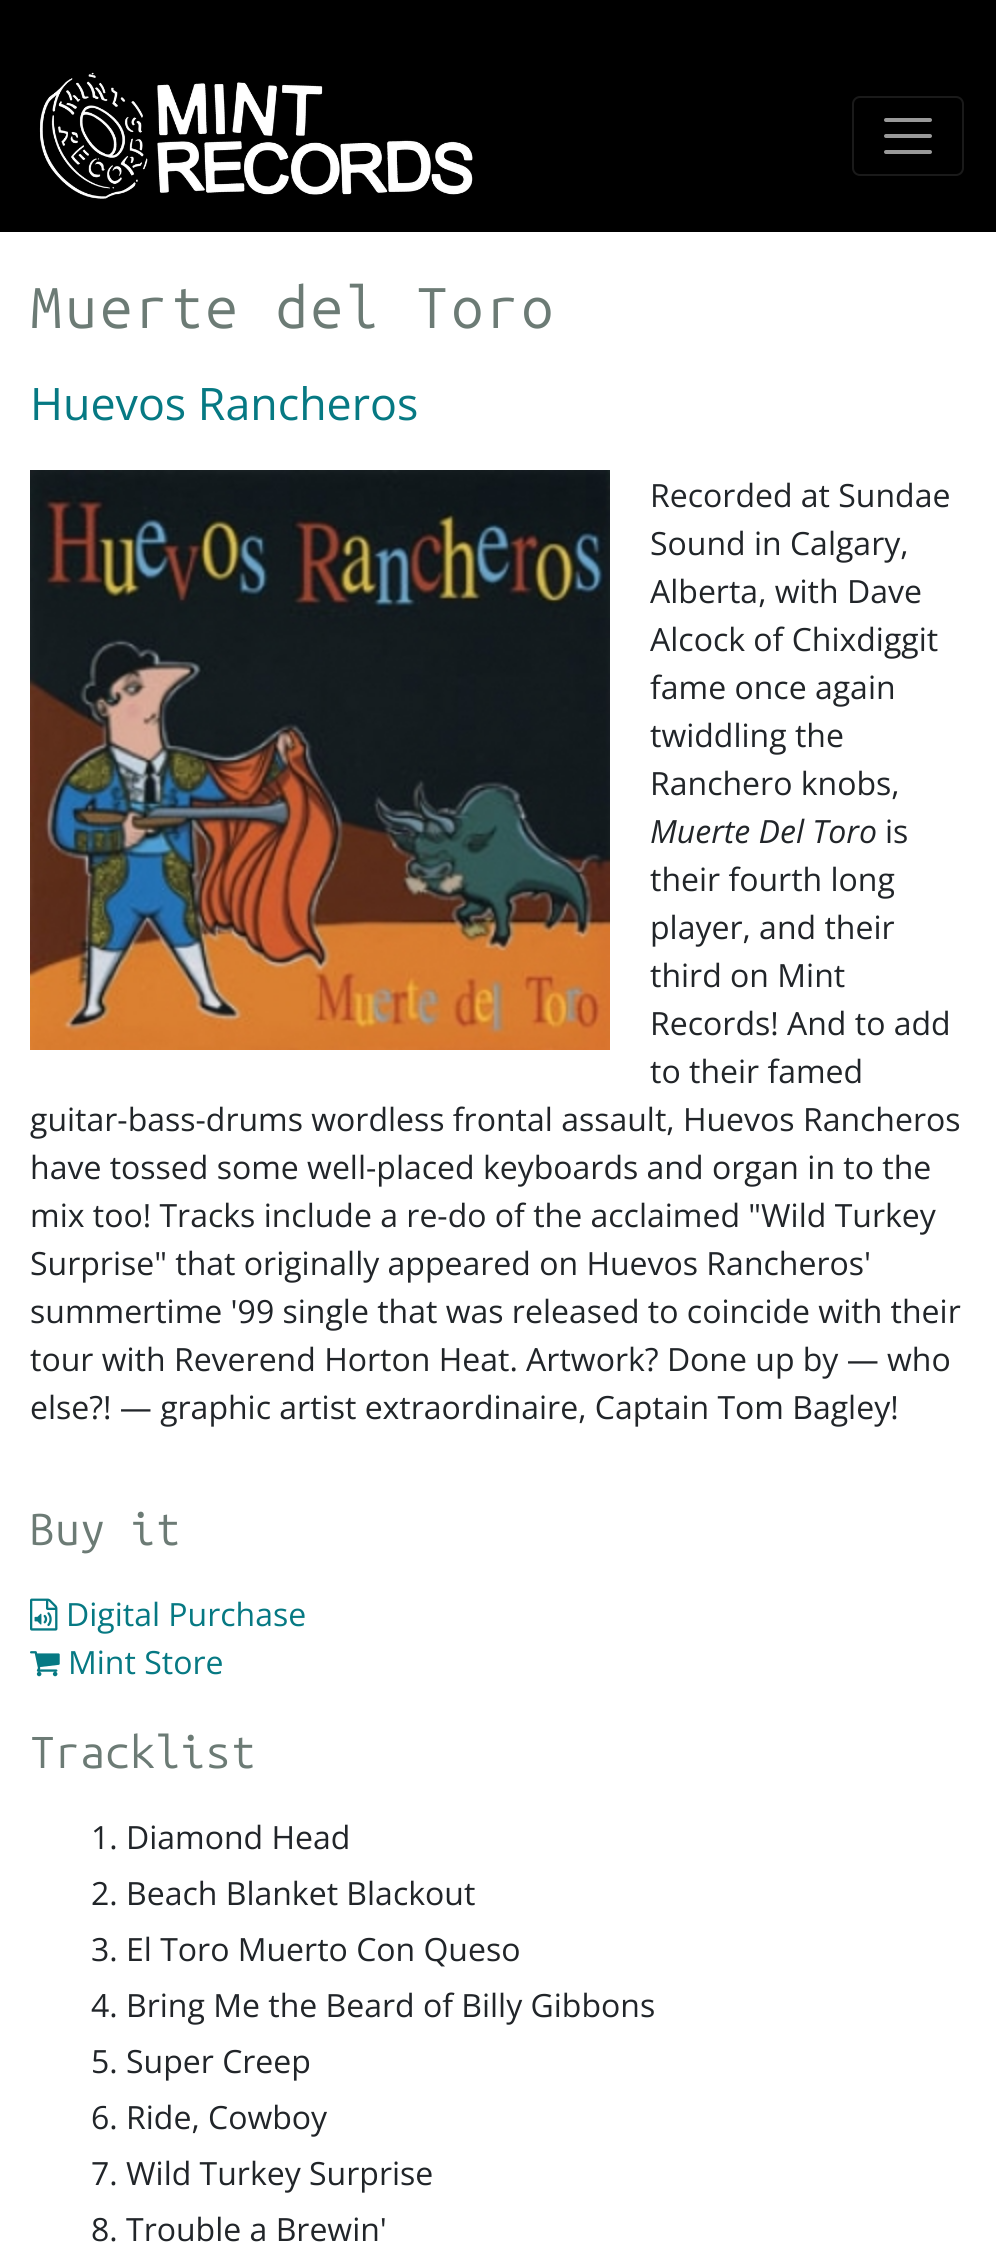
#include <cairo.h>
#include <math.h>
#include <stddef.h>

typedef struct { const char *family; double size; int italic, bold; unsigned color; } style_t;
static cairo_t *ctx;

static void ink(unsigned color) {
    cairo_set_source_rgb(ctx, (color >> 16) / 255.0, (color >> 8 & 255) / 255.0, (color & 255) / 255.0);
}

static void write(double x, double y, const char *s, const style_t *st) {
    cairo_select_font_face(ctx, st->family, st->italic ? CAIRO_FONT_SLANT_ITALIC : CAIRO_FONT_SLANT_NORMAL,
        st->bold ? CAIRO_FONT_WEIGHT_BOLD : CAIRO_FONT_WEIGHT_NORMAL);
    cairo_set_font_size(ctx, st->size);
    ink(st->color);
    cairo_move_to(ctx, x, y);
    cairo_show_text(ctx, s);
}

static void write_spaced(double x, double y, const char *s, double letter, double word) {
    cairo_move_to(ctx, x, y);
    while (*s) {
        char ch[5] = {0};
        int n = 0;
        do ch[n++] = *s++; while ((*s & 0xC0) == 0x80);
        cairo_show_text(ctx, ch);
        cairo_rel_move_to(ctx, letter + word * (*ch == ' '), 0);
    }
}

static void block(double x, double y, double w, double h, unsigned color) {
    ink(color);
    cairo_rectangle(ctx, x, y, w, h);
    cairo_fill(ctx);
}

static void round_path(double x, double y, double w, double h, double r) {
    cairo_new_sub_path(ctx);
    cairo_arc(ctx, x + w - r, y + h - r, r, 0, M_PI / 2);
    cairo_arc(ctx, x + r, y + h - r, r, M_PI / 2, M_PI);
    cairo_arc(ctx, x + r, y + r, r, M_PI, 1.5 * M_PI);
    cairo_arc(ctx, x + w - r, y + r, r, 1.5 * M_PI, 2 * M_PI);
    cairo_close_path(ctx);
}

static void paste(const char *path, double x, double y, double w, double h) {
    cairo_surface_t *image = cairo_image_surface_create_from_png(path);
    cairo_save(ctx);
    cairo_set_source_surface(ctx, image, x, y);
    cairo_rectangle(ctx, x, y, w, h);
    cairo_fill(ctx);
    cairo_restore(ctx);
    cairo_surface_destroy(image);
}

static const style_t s1 = {"Open Sans", 44.75, 0, 0, 0x067983};
static const style_t s2 = {"Open Sans", 32, 0, 0, 0x212529};
static const style_t s3 = {"Open Sans", 32, 1, 0, 0x212529};
static const style_t s4 = {"Ubuntu Mono", 44.75, 0, 0, 0x6c7b75};
static const style_t s5 = {"Open Sans", 32, 0, 0, 0x067983};

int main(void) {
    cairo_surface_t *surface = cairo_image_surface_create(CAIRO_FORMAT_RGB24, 996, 2254);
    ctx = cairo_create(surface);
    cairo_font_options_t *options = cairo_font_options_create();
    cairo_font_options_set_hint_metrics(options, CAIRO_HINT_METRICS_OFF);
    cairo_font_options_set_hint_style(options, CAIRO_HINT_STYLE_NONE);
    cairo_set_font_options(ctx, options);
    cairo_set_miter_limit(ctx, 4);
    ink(0xffffff);
    cairo_paint(ctx);
    block(0, 0, 996, 232, 0x000000);
    paste("pic1.png", 39, 72, 434, 127);
    round_path(853, 97, 110, 78, 7);
    ink(0x1a1a1a);
    cairo_stroke(ctx);
    cairo_new_path(ctx);
    cairo_move_to(ctx, 886, 120);
    cairo_line_to(ctx, 930, 120);
    cairo_move_to(ctx, 886, 136);
    cairo_line_to(ctx, 930, 136);
    cairo_move_to(ctx, 886, 152);
    cairo_line_to(ctx, 930, 152);
    ink(0x999999);
    cairo_set_line_width(ctx, 4);
    cairo_set_line_cap(ctx, CAIRO_LINE_CAP_ROUND);
    cairo_stroke(ctx);
    cairo_select_font_face(ctx, "Ubuntu Mono", CAIRO_FONT_SLANT_NORMAL, CAIRO_FONT_WEIGHT_NORMAL);
    cairo_set_font_size(ctx, 57.5);
    ink(0x6c7b75);
    write_spaced(30, 328, "Muerte del Toro", 2.9, 0);
    write(30, 420, "Huevos Rancheros", &s1);
    paste("pic2.png", 30, 470, 580, 580);
    write(650, 507, "Recorded at Sundae", &s2);
    write(650, 555, "Sound in Calgary,", &s2);
    write(650, 603, "Alberta, with Dave", &s2);
    write(650, 651, "Alcock of Chixdiggit", &s2);
    write(650, 699, "fame once again", &s2);
    write(650, 747, "twiddling the", &s2);
    write(650, 795, "Ranchero knobs,", &s2);
    write(650, 843, "Muerte Del Toro", &s3);
    write(885, 843, "is", &s2);
    write(650, 891, "their fourth long", &s2);
    write(650, 939, "player, and their", &s2);
    write(650, 987, "third on Mint", &s2);
    write(650, 1035, "Records! And to add", &s2);
    write(650, 1083, "to their famed", &s2);
    write(30, 1131, "guitar-bass-drums wordless frontal assault, Huevos Rancheros", &s2);
    write(30, 1179, "have tossed some well-placed keyboards and organ in to the", &s2);
    write(30, 1227, "mix too! Tracks include a re-do of the acclaimed \"Wild Turkey", &s2);
    write(30, 1275, "Surprise\" that originally appeared on Huevos Rancheros'", &s2);
    write(30, 1323, "summertime '99 single that was released to coincide with their", &s2);
    write(30, 1371, "tour with Reverend Horton Heat. Artwork? Done up by — who", &s2);
    write(30, 1419, "else?! — graphic artist extraordinaire, Captain Tom Bagley!", &s2);
    write(30, 1545, "Buy it", &s4);
    paste("pic3.png", 30, 1598, 28, 33);
    write(66, 1626, "Digital Purchase", &s5);
    paste("pic4.png", 30, 1651, 30, 26);
    write(68, 1674, "Mint Store", &s5);
    write(30, 1768, "Tracklist", &s4);
    write(91, 1849, "1. Diamond Head", &s2);
    write(91, 1905, "2. Beach Blanket Blackout", &s2);
    write(91, 1961, "3. El Toro Muerto Con Queso", &s2);
    write(91, 2017, "4. Bring Me the Beard of Billy Gibbons", &s2);
    write(91, 2073, "5. Super Creep", &s2);
    write(91, 2129, "6. Ride, Cowboy", &s2);
    write(91, 2185, "7. Wild Turkey Surprise", &s2);
    write(91, 2241, "8. Trouble a Brewin'", &s2);
    cairo_surface_write_to_png(surface, "screenshot.png");
    cairo_font_options_destroy(options);
    cairo_destroy(ctx);
    cairo_surface_destroy(surface);
    return 0;
}
